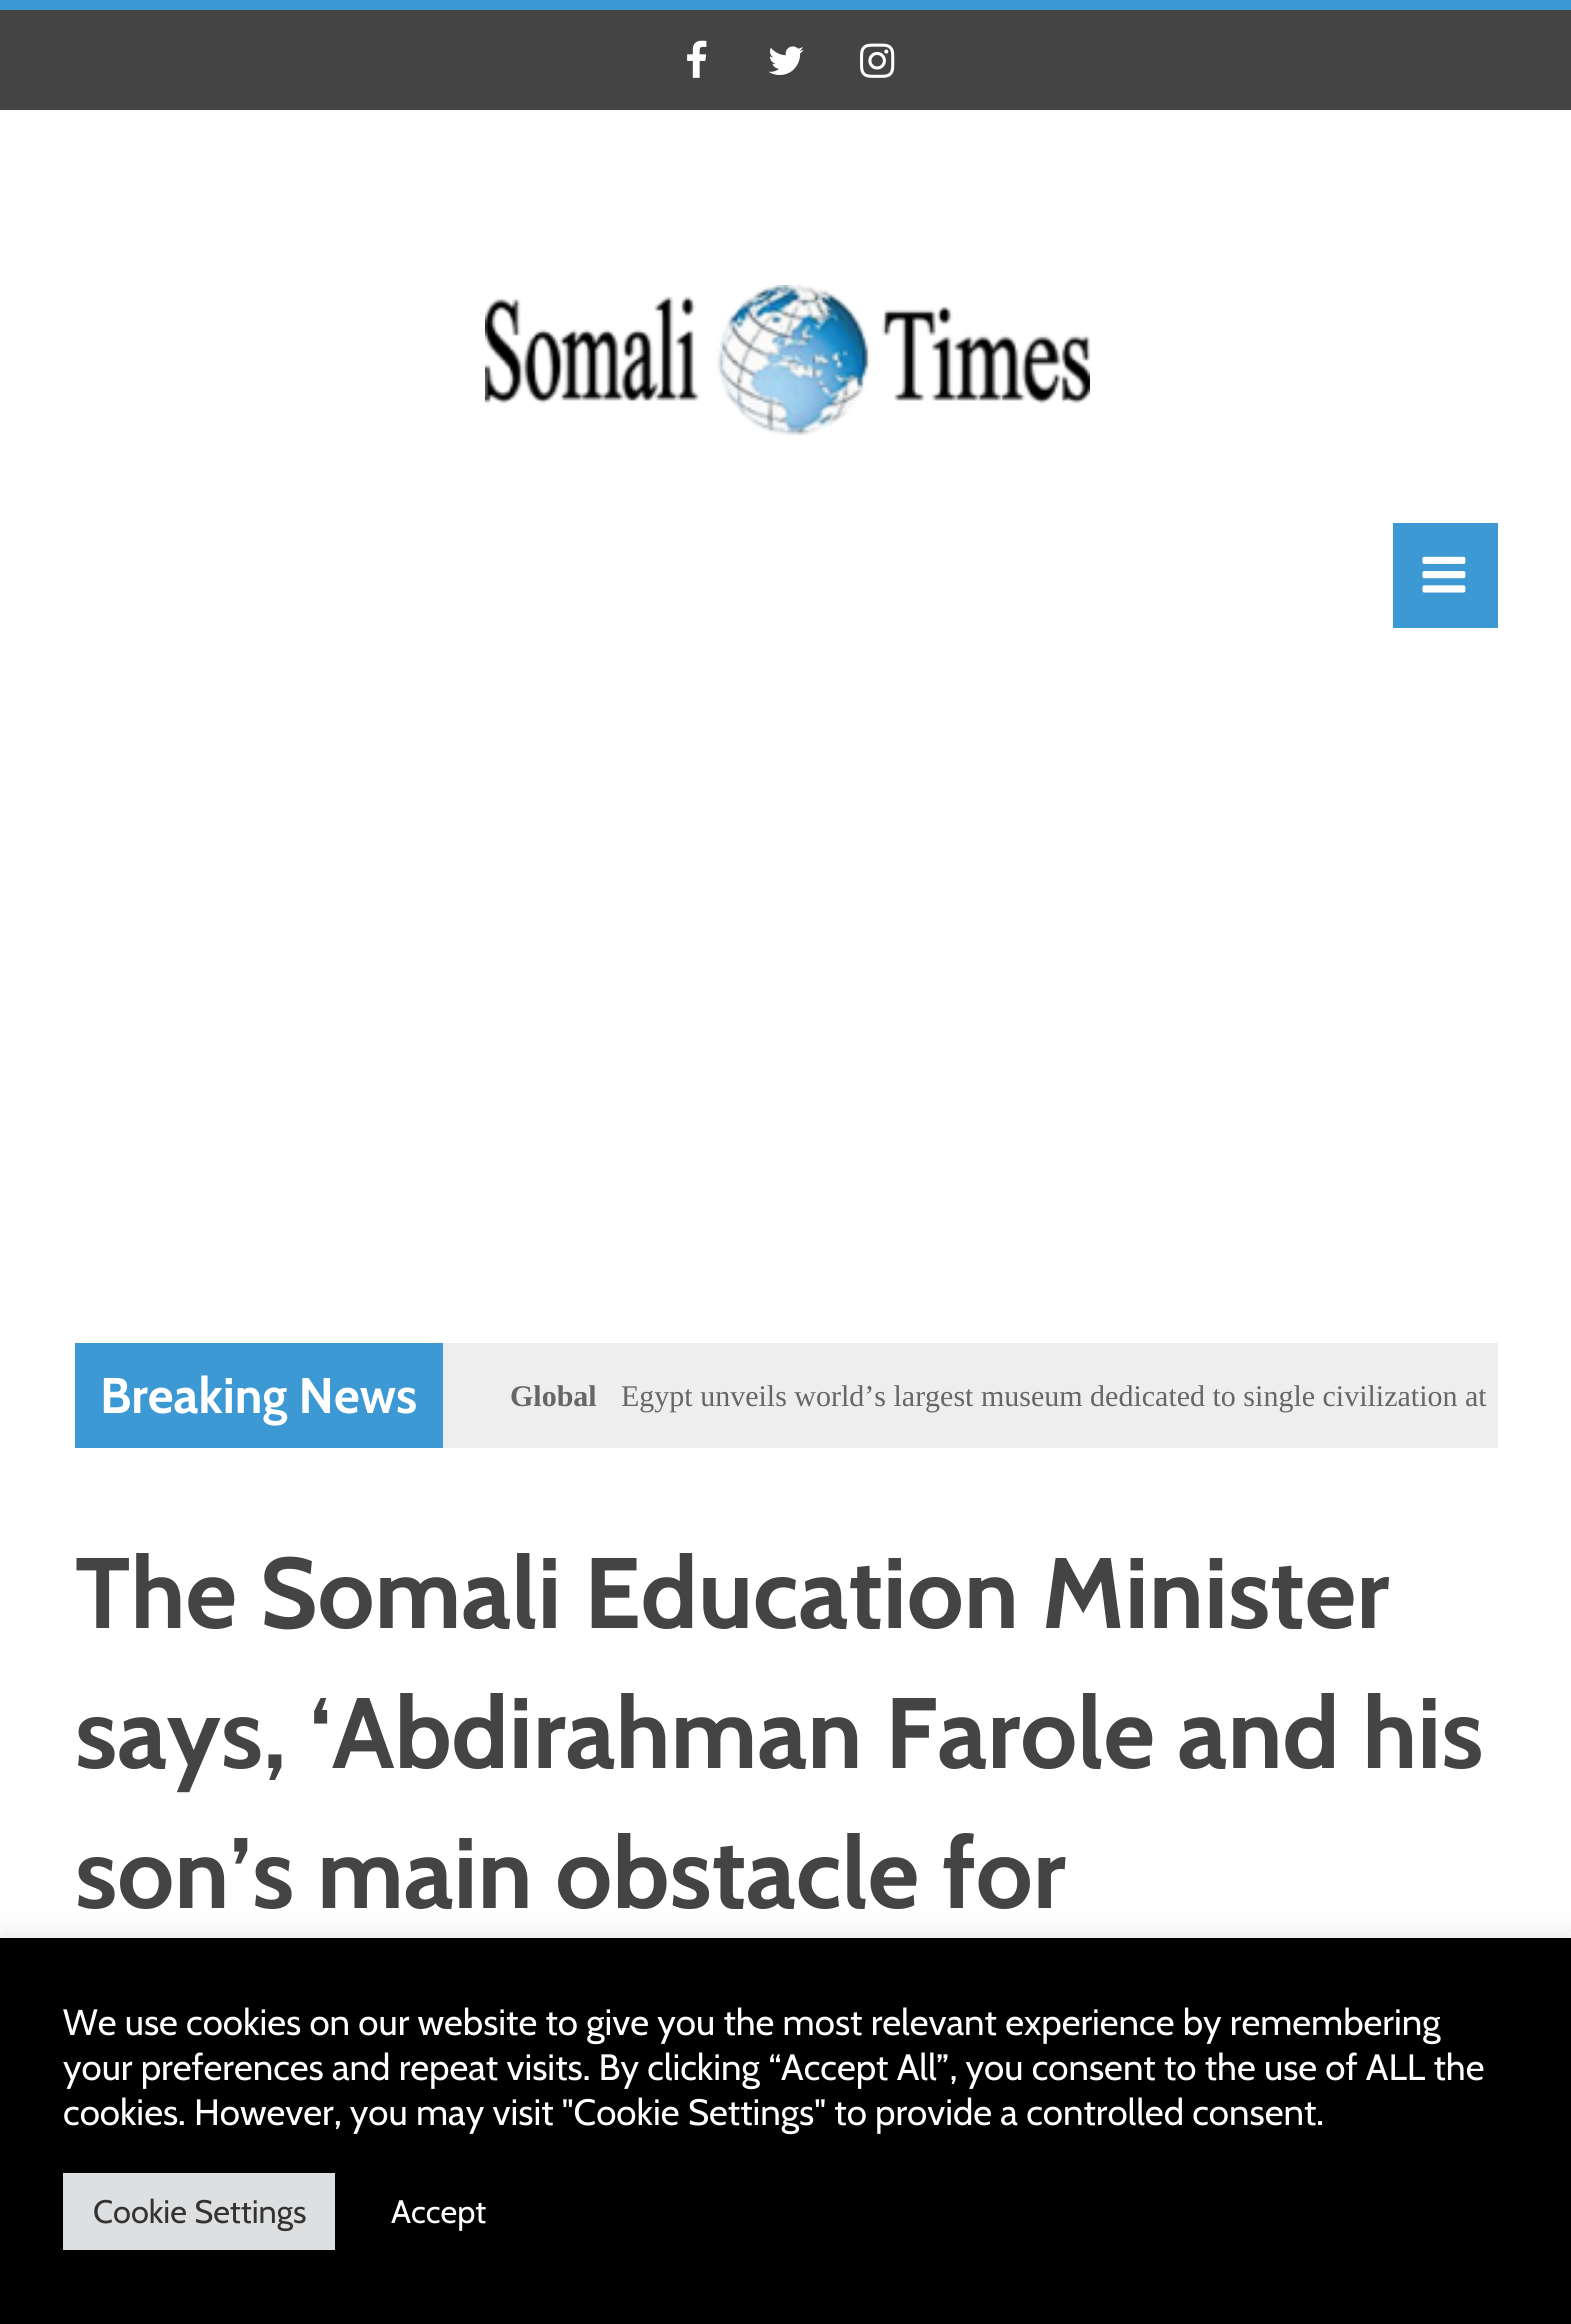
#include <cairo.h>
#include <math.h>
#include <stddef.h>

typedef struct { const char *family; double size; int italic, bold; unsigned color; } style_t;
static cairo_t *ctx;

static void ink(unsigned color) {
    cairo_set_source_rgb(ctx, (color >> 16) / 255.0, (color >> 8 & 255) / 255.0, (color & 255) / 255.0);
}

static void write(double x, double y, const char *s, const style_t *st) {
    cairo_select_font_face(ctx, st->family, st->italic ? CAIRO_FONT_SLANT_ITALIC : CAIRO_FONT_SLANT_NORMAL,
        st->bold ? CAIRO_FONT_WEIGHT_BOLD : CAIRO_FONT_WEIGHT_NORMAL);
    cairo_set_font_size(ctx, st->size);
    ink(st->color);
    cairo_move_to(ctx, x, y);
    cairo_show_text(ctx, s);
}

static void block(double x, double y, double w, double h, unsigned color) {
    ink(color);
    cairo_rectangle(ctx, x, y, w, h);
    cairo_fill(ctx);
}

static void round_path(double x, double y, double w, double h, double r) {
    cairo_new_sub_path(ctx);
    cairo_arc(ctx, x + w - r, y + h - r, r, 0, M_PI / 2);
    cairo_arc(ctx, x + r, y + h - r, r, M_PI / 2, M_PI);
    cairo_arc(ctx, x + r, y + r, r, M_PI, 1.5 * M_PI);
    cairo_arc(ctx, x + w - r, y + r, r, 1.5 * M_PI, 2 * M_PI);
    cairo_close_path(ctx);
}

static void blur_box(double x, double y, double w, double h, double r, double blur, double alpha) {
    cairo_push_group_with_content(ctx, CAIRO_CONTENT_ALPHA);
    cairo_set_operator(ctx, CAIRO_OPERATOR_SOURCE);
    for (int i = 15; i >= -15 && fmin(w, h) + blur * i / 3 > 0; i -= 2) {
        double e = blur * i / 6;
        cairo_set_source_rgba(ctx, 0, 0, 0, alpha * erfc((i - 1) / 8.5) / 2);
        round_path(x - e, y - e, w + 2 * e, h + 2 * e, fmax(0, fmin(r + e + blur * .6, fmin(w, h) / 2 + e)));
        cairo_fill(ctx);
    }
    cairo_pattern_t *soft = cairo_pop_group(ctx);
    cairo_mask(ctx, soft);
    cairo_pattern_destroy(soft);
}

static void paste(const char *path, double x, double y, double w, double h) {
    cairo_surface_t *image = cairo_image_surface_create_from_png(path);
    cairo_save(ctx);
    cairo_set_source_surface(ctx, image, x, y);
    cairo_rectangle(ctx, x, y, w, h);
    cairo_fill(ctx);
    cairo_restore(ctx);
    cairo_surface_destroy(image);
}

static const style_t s1 = {"Cabin", 50, 0, 1, 0xffffff};
static const style_t s2 = {"Liberation Serif", 30, 0, 1, 0x666666};
static const style_t s3 = {"Liberation Serif", 30, 0, 0, 0x666666};
static const style_t s4 = {"Cabin", 100, 0, 1, 0x444444};
static const style_t s5 = {"Cabin", 36.65, 0, 0, 0xffffff};
static const style_t s6 = {"Cabin", 32.5, 0, 0, 0x333333};
static const style_t s7 = {"Cabin", 32.5, 0, 0, 0xffffff};

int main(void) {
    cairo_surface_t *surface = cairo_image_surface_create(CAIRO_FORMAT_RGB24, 1571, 2324);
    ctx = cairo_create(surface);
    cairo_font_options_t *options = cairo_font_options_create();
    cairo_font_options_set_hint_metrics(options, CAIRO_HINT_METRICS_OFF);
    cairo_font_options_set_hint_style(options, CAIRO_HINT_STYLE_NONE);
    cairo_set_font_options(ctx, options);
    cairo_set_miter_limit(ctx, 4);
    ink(0xffffff);
    cairo_paint(ctx);
    block(0, 10, 1571, 100, 0x444444);
    block(0, 0, 1571, 10, 0x3d99d3);
    paste("pic1.png", 687, 40, 20, 38);
    paste("pic2.png", 768, 46, 36, 29);
    paste("pic3.png", 860, 43, 35, 35);
    paste("pic4.png", 485, 285, 605, 150);
    block(1393, 523, 105, 105, 0x3d99d3);
    paste("pic5.png", 1422, 556, 44, 37);
    block(443, 1343, 1055, 105, 0xeeeeee);
    block(75, 1343, 368, 105, 0x3d99d3);
    write(100, 1413, "Breaking News", &s1);
    write(510, 1406, "Global", &s2);
    write(621, 1406, "Egypt unveils world’s largest museum dedicated to single civilization at", &s3);
    write(75, 1628, "The Somali Education Minister", &s4);
    write(75, 1768, "says, ‘Abdirahman Farole and his", &s4);
    write(75, 1908, "son’s main obstacle for", &s4);
    ink(0xacabab);
    blur_box(0, 1935, 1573, 388, 0, 12.5, 0.3);
    block(0, 1938, 1571, 386, 0x000000);
    write(63, 2035, "We use cookies on our website to give you the most relevant experience by remembering", &s5);
    write(63, 2080, "your preferences and repeat visits. By clicking “Accept All”, you consent to the use of ALL the", &s5);
    write(63, 2125, "cookies. However, you may visit \"Cookie Settings\" to provide a controlled consent.", &s5);
    block(63, 2173, 272, 77, 0xdedfe0);
    write(93, 2223, "Cookie Settings", &s6);
    write(391, 2223, "Accept", &s7);
    cairo_surface_write_to_png(surface, "screenshot.png");
    cairo_font_options_destroy(options);
    cairo_destroy(ctx);
    cairo_surface_destroy(surface);
    return 0;
}
